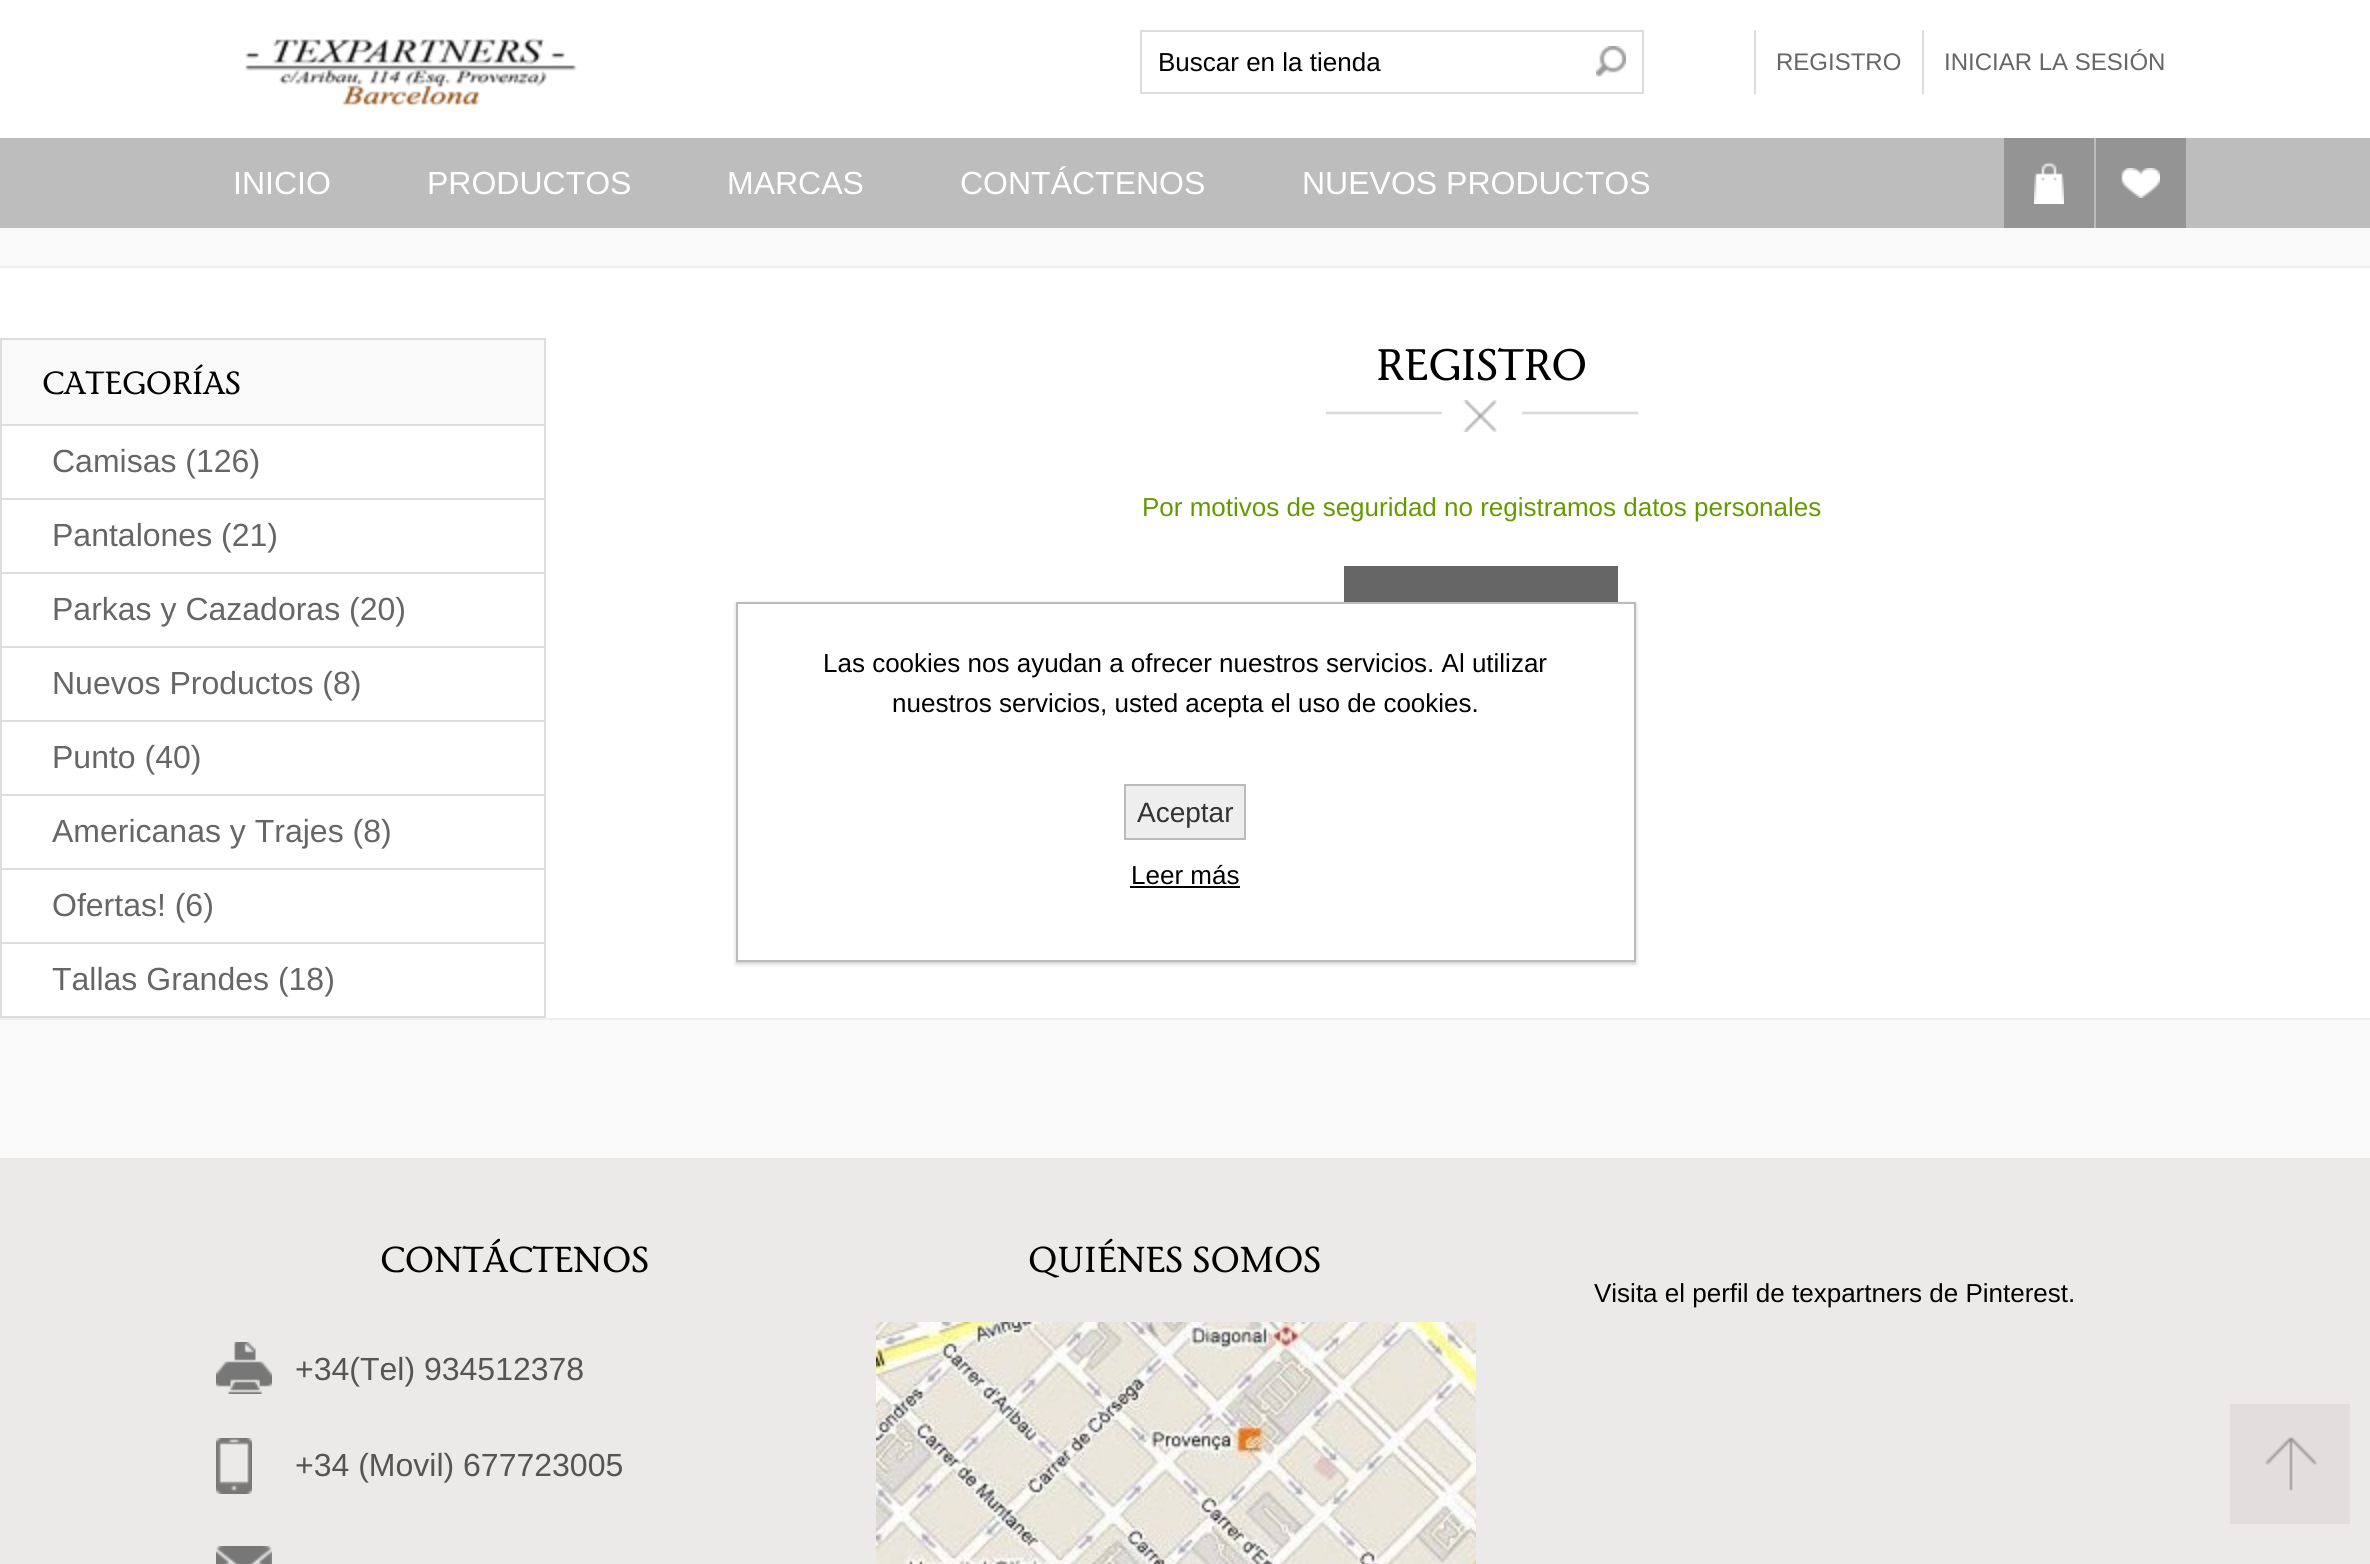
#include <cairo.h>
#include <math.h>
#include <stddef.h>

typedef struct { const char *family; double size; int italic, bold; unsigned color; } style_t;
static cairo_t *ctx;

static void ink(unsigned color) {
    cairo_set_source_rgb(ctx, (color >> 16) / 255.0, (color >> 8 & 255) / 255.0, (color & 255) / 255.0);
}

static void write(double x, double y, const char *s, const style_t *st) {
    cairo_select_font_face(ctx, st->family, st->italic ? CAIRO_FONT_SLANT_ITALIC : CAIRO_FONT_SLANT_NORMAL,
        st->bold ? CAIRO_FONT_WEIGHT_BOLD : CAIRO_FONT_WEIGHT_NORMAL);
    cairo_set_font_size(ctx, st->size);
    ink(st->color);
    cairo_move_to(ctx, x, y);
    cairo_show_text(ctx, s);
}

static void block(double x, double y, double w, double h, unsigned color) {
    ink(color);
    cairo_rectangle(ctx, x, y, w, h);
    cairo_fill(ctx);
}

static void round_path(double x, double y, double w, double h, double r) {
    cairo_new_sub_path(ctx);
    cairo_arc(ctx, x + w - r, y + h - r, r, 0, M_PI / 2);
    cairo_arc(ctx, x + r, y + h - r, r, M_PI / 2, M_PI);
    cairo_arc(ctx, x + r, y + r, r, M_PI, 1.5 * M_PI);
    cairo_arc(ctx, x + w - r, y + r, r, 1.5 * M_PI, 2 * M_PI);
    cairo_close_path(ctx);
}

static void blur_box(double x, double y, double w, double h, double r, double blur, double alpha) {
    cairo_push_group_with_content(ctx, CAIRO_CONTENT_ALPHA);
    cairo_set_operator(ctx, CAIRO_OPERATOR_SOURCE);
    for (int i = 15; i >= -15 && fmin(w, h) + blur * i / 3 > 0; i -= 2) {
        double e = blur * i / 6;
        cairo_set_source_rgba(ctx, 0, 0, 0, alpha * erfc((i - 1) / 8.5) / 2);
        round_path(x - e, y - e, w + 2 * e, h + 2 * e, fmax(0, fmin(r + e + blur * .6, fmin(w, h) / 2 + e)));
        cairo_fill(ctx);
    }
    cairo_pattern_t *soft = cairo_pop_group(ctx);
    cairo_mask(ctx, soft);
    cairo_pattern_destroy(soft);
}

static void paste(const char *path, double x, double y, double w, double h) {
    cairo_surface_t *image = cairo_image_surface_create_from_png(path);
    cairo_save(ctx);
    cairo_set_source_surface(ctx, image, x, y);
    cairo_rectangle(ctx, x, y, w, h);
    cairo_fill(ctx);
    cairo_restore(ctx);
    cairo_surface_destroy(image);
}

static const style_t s1 = {"Liberation Sans", 26, 0, 0, 0x000000};
static const style_t s2 = {"Liberation Sans", 24, 0, 0, 0x666666};
static const style_t s3 = {"Liberation Sans", 32, 0, 0, 0xffffff};
static const style_t s4 = {"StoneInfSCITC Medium", 32, 0, 0, 0x000000};
static const style_t s5 = {"Liberation Sans", 32, 0, 0, 0x666666};
static const style_t s6 = {"StoneInfSCITC Medium", 44, 0, 0, 0x000000};
static const style_t s7 = {"Liberation Sans", 26, 0, 0, 0x669900};
static const style_t s8 = {"Liberation Sans", 28, 0, 0, 0x333333};
static const style_t s9 = {"StoneInfSCITC Medium", 36, 0, 0, 0x000000};
static const style_t s10 = {"Liberation Sans", 32, 0, 0, 0x555555};

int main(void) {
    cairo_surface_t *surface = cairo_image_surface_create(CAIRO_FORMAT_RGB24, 2370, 1564);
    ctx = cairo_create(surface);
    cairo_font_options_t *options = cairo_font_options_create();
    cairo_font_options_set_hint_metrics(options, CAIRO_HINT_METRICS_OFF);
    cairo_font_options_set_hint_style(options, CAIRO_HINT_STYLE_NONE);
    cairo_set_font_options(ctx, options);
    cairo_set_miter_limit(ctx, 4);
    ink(0xf9f9f9);
    cairo_paint(ctx);
    block(0, 0, 2370, 138, 0xffffff);
    paste("pic1.png", 245, 38, 332, 69);
    block(1140, 30, 504, 2, 0xdddddd);
    block(1140, 92, 440, 2, 0xdddddd);
    block(1140, 30, 2, 64, 0xdddddd);
    write(1158, 71, "Buscar en la tienda", &s1);
    paste("pic2.png", 1596, 46, 30, 31);
    block(1642, 30, 2, 64, 0xdddddd);
    block(1580, 92, 64, 2, 0xdddddd);
    block(1754, 30, 2, 64, 0xdddddd);
    write(1776, 70, "REGISTRO", &s2);
    block(1922, 30, 2, 64, 0xdddddd);
    write(1944, 70, "INICIAR LA SESIÓN", &s2);
    block(0, 138, 2370, 90, 0xbdbdbd);
    write(233, 194, "INICIO", &s3);
    write(427, 194, "PRODUCTOS", &s3);
    write(727, 194, "MARCAS", &s3);
    write(960, 194, "CONTÁCTENOS", &s3);
    write(1302, 194, "NUEVOS PRODUCTOS", &s3);
    block(2004, 138, 90, 90, 0x949494);
    paste("pic3.png", 2034, 162, 30, 42);
    block(2096, 138, 90, 90, 0x949494);
    paste("pic4.png", 2121, 168, 39, 30);
    cairo_rectangle(ctx, -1, 267, 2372, 752);
    ink(0xeeeeee);
    cairo_stroke(ctx);
    block(0, 268, 2370, 750, 0xffffff);
    cairo_rectangle(ctx, 1, 339, 544, 678);
    ink(0xdddddd);
    cairo_stroke(ctx);
    block(2, 340, 542, 84, 0xf9f9f9);
    write(42, 394, "CATEGORÍAS", &s4);
    block(2, 424, 542, 2, 0xdddddd);
    write(52, 472, "Camisas (126)", &s5);
    block(2, 498, 542, 2, 0xdddddd);
    write(52, 546, "Pantalones (21)", &s5);
    block(2, 572, 542, 2, 0xdddddd);
    write(52, 620, "Parkas y Cazadoras (20)", &s5);
    block(2, 646, 542, 2, 0xdddddd);
    write(52, 694, "Nuevos Productos (8)", &s5);
    block(2, 720, 542, 2, 0xdddddd);
    write(52, 768, "Punto (40)", &s5);
    block(2, 794, 542, 2, 0xdddddd);
    write(52, 842, "Americanas y Trajes (8)", &s5);
    block(2, 868, 542, 2, 0xdddddd);
    write(52, 916, "Ofertas! (6)", &s5);
    block(2, 942, 542, 2, 0xdddddd);
    write(52, 990, "Tallas Grandes (18)", &s5);
    paste("pic5.png", 1326, 400, 312, 32);
    write(1376, 380, "REGISTRO", &s6);
    write(1142, 516, "Por motivos de seguridad no registramos datos personales", &s7);
    block(1344, 566, 274, 36, 0x666666);
    ink(0x000000);
    blur_box(736, 604, 900, 360, 0, 2, 0.2);
    ink(0xffffff);
    cairo_rectangle(ctx, 737, 603, 898, 358);
    cairo_fill_preserve(ctx);
    ink(0xbbbbbb);
    cairo_stroke(ctx);
    write(823, 672, "Las cookies nos ayudan a ofrecer nuestros servicios. Al utilizar", &s1);
    write(892, 712, "nuestros servicios, usted acepta el uso de cookies.", &s1);
    ink(0xeeeeee);
    cairo_rectangle(ctx, 1125, 785, 120, 54);
    cairo_fill_preserve(ctx);
    ink(0xbbbbbb);
    cairo_stroke(ctx);
    write(1137, 822, "Aceptar", &s8);
    write(1131, 884, "Leer más", &s1);
    block(1130, 886, 110, 2, 0x000000);
    block(0, 1158, 2370, 406, 0xebeae9);
    write(380, 1272, "CONTÁCTENOS", &s9);
    paste("pic6.png", 216, 1342, 56, 52);
    write(295, 1380, "+34(Tel) 934512378", &s10);
    paste("pic7.png", 216, 1438, 36, 56);
    write(295, 1476, "+34 (Movil) 677723005", &s10);
    paste("pic8.png", 216, 1546, 56, 18);
    write(1028, 1272, "QUIÉNES SOMOS", &s9);
    paste("pic9.png", 876, 1322, 600, 242);
    write(1594, 1302, "Visita el perfil de texpartners de Pinterest.", &s1);
    block(2230, 1404, 120, 120, 0xe2dedd);
    paste("pic10.png", 2265, 1437, 52, 54);
    cairo_surface_write_to_png(surface, "screenshot.png");
    cairo_font_options_destroy(options);
    cairo_destroy(ctx);
    cairo_surface_destroy(surface);
    return 0;
}
